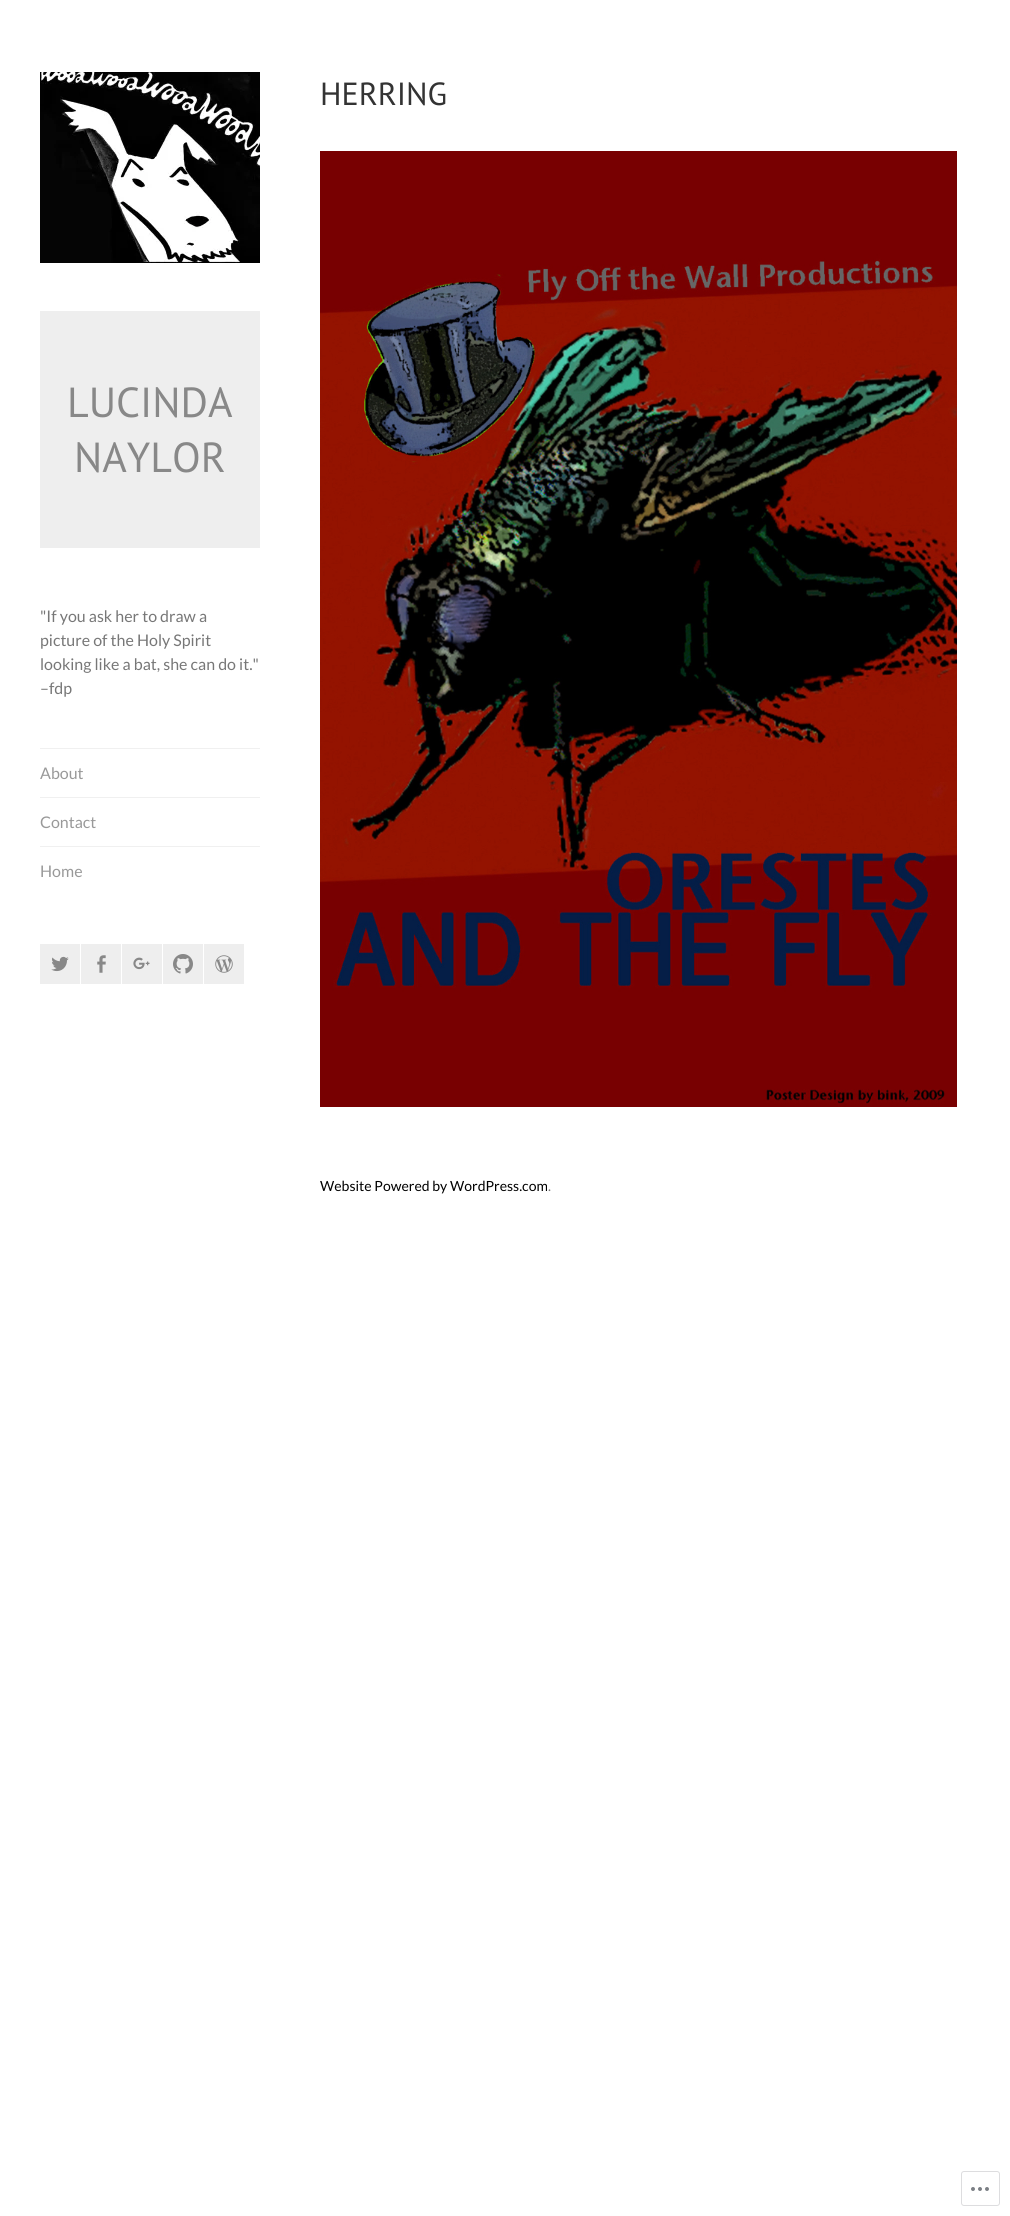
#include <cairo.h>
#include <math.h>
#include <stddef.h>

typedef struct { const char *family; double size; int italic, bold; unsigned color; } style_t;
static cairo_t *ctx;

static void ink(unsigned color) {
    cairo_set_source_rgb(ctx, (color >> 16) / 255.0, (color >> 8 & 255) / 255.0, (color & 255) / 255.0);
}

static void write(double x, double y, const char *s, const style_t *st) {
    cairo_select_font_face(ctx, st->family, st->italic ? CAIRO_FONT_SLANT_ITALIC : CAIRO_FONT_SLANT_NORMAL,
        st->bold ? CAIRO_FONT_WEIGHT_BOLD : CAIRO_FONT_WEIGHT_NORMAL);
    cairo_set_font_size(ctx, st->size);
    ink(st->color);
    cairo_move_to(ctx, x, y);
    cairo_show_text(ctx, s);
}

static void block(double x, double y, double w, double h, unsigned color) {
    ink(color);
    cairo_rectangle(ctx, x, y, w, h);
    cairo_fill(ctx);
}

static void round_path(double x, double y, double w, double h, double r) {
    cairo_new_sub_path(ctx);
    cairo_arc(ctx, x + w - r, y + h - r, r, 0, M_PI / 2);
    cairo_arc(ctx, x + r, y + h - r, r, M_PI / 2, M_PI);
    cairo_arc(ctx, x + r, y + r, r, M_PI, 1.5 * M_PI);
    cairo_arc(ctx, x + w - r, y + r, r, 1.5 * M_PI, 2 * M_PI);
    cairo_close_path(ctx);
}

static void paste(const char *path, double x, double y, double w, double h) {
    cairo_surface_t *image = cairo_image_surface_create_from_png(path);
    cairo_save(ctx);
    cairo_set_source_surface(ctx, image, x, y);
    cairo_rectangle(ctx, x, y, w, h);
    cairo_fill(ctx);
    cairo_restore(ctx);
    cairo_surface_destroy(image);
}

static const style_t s1 = {"PT Sans", 42, 0, 0, 0x888888};
static const style_t s2 = {"Lato", 16, 0, 0, 0x777777};
static const style_t s3 = {"Lato", 16, 0, 0, 0x999999};
static const style_t s4 = {"PT Sans", 32, 0, 0, 0x333333};
static const style_t s5 = {"Lato", 14, 0, 0, 0x000000};
static const style_t s6 = {"Lato", 14, 0, 0, 0x777777};

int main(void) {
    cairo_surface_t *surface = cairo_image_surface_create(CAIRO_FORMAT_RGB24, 1010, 2216);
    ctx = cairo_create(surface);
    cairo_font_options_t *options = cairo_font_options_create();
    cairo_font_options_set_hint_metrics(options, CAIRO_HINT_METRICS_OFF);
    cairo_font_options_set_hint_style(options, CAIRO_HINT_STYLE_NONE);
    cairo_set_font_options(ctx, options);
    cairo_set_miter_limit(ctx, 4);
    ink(0xffffff);
    cairo_paint(ctx);
    paste("pic1.png", 40, 72, 220, 191);
    block(40, 311, 220, 237, 0xeeeeee);
    write(67, 417, "LUCINDA", &s1);
    write(74, 472, "NAYLOR", &s1);
    write(40, 622, "\"If you ask her to draw a", &s2);
    write(40, 646, "picture of the Holy Spirit", &s2);
    write(40, 670, "looking like a bat, she can do it.\"", &s2);
    write(40, 694, "–fdp", &s2);
    block(40, 748, 220, 1, 0xf0f0f0);
    write(40, 779, "About", &s3);
    block(40, 797, 220, 1, 0xf0f0f0);
    write(40, 828, "Contact", &s3);
    block(40, 846, 220, 1, 0xf0f0f0);
    write(40, 877, "Home", &s3);
    block(40, 944, 40, 40, 0xeeeeee);
    paste("pic2.png", 51, 956, 18, 16);
    block(81, 944, 40, 40, 0xeeeeee);
    paste("pic3.png", 97, 955, 9, 18);
    block(122, 944, 40, 40, 0xeeeeee);
    paste("pic4.png", 133, 957, 17, 13);
    block(163, 944, 40, 40, 0xeeeeee);
    paste("pic5.png", 173, 954, 20, 20);
    block(204, 944, 40, 40, 0xeeeeee);
    paste("pic6.png", 215, 955, 18, 18);
    write(320, 105, "HERRING", &s4);
    paste("pic7.png", 320, 151, 637, 956);
    write(320, 1191, "Website Powered by WordPress.com", &s5);
    write(548, 1191, ".", &s6);
    round_path(961.5, 2171.5, 38, 34, 2.5);
    ink(0xdddddf);
    cairo_set_line_width(ctx, 1);
    cairo_stroke(ctx);
    paste("pic8.png", 971, 2187, 18, 4);
    cairo_surface_write_to_png(surface, "screenshot.png");
    cairo_font_options_destroy(options);
    cairo_destroy(ctx);
    cairo_surface_destroy(surface);
    return 0;
}
